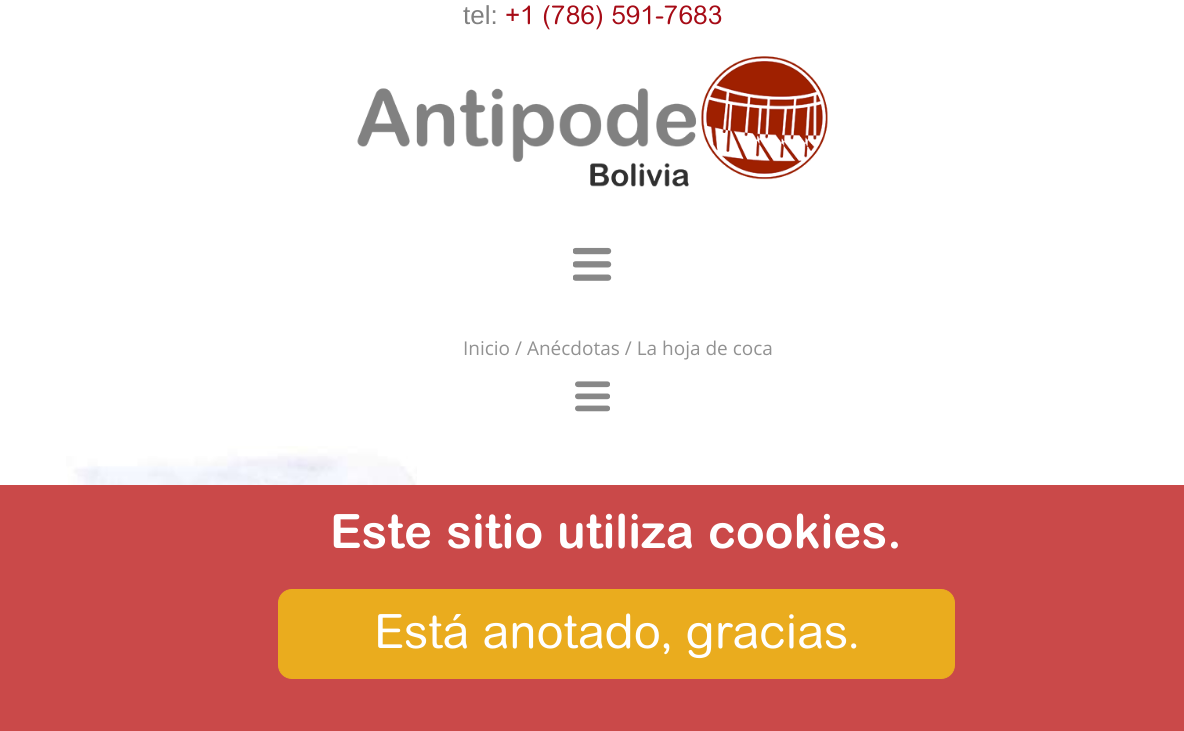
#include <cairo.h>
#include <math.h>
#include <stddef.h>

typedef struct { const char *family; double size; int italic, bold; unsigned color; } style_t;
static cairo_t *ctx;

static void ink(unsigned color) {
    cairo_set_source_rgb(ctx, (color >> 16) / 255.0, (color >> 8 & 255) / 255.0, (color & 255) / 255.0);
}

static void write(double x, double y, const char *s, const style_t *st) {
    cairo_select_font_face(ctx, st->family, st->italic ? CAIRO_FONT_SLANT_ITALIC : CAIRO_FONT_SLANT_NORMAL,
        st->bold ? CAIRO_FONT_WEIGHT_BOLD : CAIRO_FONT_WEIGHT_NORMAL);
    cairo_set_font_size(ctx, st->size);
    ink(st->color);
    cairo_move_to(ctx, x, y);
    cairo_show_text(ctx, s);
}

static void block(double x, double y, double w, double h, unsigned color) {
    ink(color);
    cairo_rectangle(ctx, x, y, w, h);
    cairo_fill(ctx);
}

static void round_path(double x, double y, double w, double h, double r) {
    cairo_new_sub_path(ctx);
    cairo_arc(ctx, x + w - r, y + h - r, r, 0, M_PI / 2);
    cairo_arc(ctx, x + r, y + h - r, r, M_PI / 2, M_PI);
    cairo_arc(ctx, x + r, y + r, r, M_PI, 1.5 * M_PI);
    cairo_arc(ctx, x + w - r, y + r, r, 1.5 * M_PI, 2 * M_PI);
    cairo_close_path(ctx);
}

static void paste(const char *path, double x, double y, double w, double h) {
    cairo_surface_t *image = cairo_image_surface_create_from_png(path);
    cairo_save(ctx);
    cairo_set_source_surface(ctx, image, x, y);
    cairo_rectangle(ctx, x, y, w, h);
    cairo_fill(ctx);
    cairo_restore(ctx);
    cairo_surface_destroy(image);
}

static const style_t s1 = {"Liberation Sans", 26, 0, 0, 0x808080};
static const style_t s2 = {"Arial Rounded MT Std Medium", 26, 0, 0, 0xa60b16};
static const style_t s3 = {"Open Sans", 19, 0, 0, 0x929292};
static const style_t s4 = {"Arial Rounded MT Std", 47.4, 0, 1, 0xffffff};
static const style_t s5 = {"Arial Rounded MT Std Medium", 47.4, 0, 0, 0xffffff};

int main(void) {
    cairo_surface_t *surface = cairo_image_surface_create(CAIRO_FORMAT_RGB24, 1184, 731);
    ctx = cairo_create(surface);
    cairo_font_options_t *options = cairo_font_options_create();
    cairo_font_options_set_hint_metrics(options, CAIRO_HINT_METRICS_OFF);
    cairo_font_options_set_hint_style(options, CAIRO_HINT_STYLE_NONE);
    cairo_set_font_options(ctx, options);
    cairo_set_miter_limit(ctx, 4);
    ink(0xffffff);
    cairo_paint(ctx);
    write(463, 24, "tel:", &s1);
    write(505, 24, "+1 (786) 591-7683", &s2);
    paste("pic1.png", 357, 56, 471, 131);
    paste("pic2.png", 573, 247, 39, 34);
    write(463, 355, "Inicio / Anécdotas / La hoja de coca", &s3);
    paste("pic3.png", 575, 381, 35, 31);
    paste("pic4.png", 66, 446, 351, 39);
    block(0, 485, 1184, 246, 0xca4949);
    write(330, 548, "Este sitio utiliza cookies.", &s4);
    ink(0xeaac1e);
    round_path(278.5, 589.5, 676, 89, 13.5);
    cairo_fill_preserve(ctx);
    cairo_set_line_width(ctx, 1);
    cairo_stroke(ctx);
    write(374, 648, "Está anotado, gracias.", &s5);
    cairo_surface_write_to_png(surface, "screenshot.png");
    cairo_font_options_destroy(options);
    cairo_destroy(ctx);
    cairo_surface_destroy(surface);
    return 0;
}
